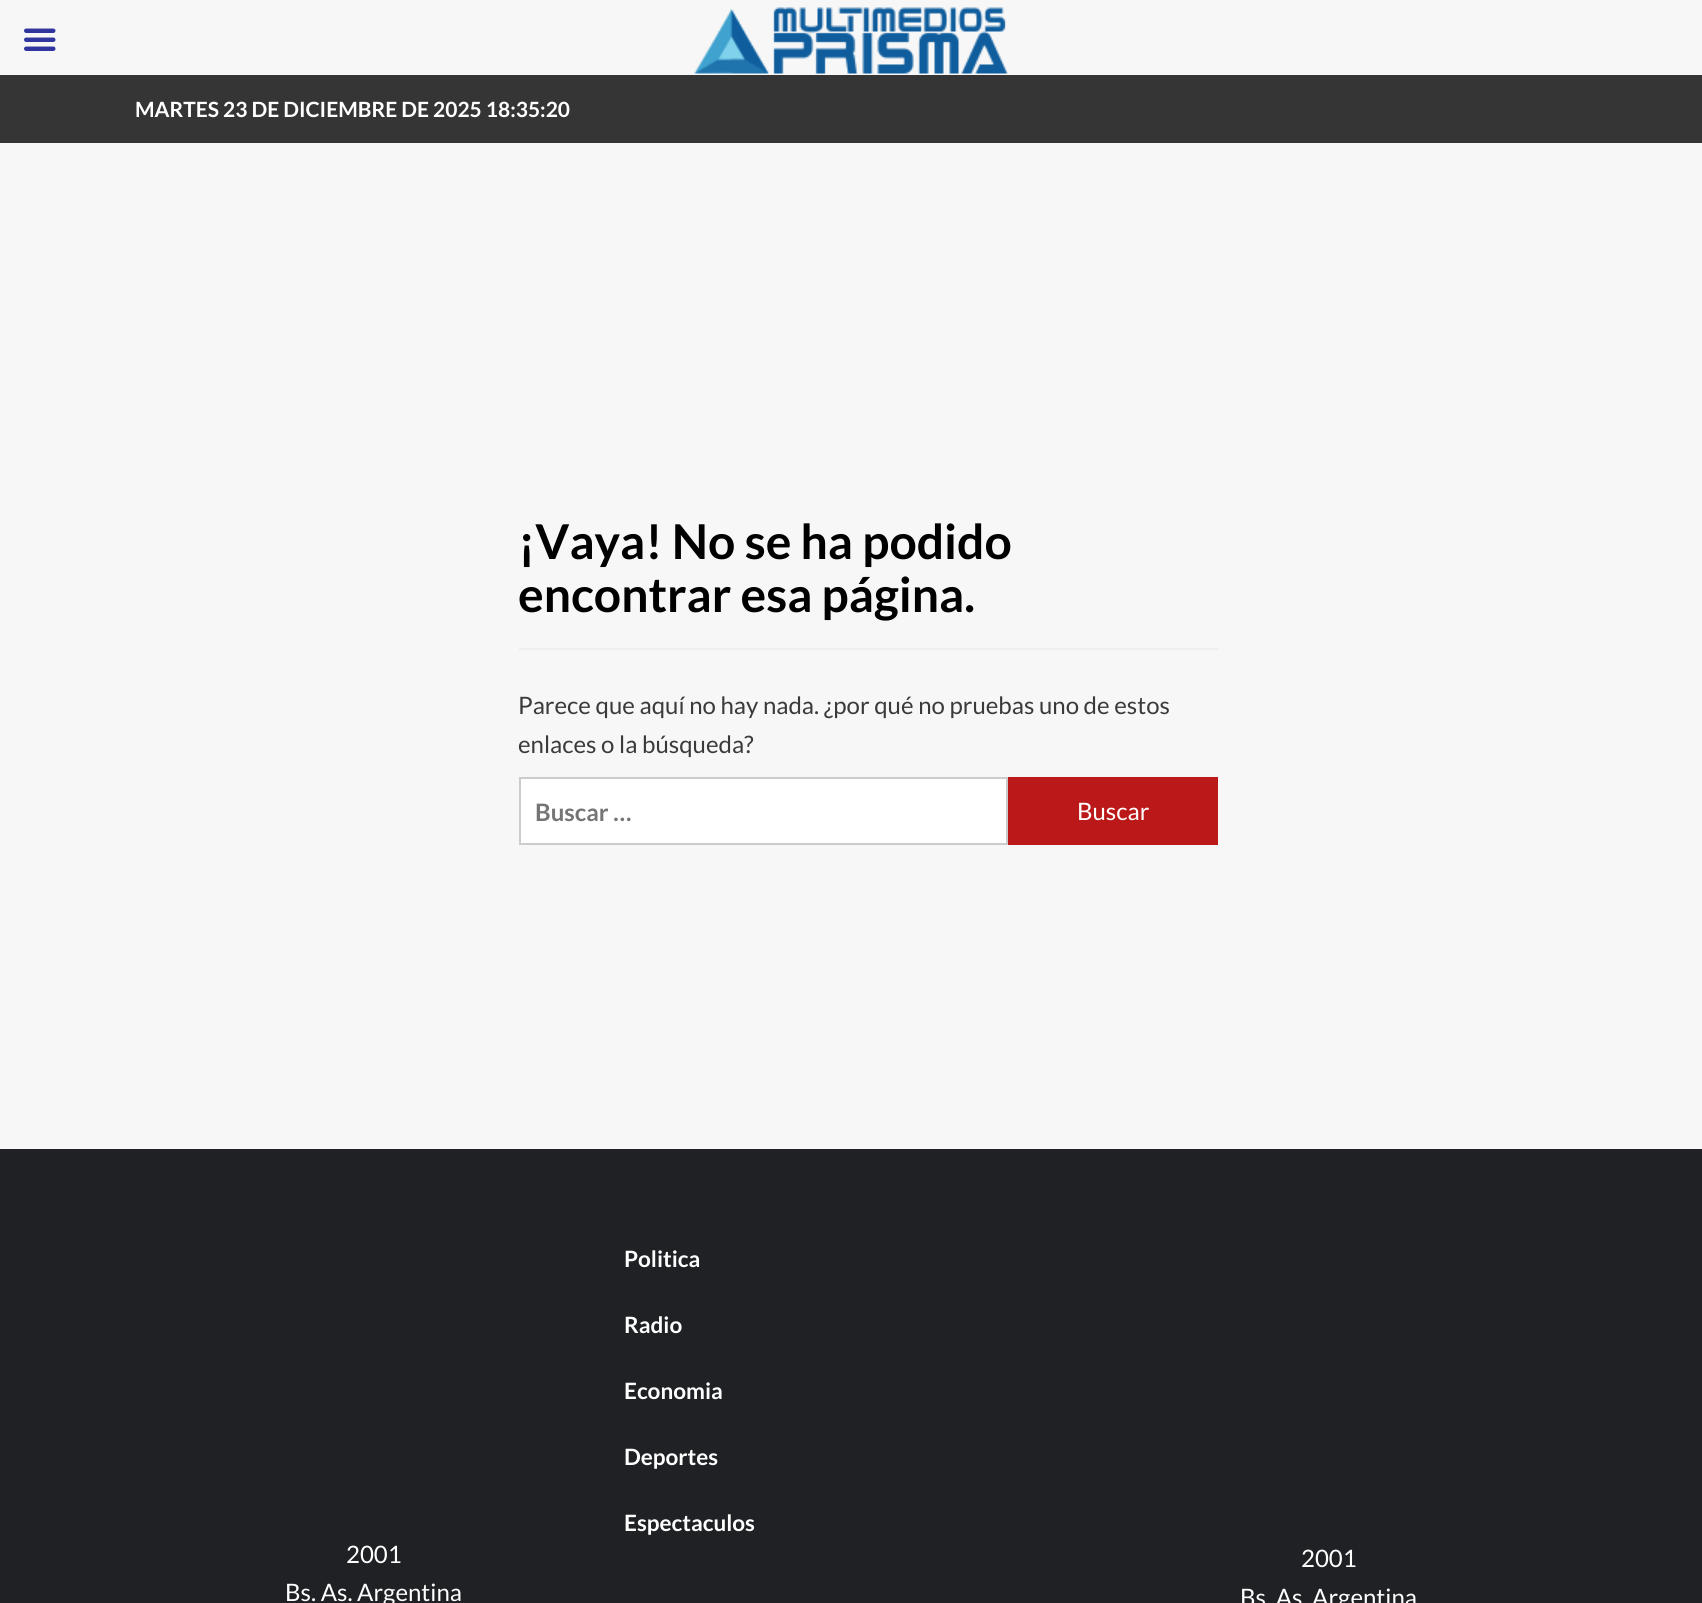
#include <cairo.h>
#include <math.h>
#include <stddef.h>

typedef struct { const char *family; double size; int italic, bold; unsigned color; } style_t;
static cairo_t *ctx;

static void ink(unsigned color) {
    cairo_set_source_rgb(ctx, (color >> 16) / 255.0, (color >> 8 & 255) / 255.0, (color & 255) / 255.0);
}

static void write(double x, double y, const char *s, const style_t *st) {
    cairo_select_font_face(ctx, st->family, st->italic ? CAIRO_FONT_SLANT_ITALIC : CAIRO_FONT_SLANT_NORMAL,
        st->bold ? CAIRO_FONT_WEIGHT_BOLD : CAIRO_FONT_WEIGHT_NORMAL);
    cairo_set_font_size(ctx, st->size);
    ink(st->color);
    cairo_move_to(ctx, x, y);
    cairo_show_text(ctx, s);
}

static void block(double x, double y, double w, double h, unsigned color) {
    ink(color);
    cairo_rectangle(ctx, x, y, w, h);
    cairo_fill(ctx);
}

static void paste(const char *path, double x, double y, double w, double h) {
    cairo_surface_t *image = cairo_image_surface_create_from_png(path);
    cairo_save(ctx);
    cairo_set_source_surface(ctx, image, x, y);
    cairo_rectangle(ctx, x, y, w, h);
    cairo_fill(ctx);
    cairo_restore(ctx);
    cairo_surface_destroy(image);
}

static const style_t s1 = {"Lato", 21, 0, 1, 0xffffff};
static const style_t s2 = {"Lato", 48, 0, 1, 0x000000};
static const style_t s3 = {"Lato", 24, 0, 0, 0x3a3a3a};
static const style_t s4 = {"Lato", 24, 0, 1, 0x757575};
static const style_t s5 = {"Lato", 24, 0, 0, 0xffffff};
static const style_t s6 = {"Lato", 22.5, 0, 1, 0xffffff};

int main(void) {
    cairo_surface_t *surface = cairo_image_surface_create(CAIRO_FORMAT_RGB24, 1702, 1603);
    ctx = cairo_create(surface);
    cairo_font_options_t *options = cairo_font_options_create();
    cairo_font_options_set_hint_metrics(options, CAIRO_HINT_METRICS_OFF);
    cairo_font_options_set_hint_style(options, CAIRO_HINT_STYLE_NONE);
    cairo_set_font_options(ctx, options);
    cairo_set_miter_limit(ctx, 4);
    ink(0xf7f7f7);
    cairo_paint(ctx);
    paste("pic1.png", 24, 28, 32, 23);
    paste("pic2.png", 694, 7, 314, 67);
    block(0, 75, 1702, 68, 0x353535);
    write(135, 117, "MARTES 23 DE DICIEMBRE DE 2025 18:35:20", &s1);
    block(519, 648, 699, 2, 0xeeeeee);
    write(518, 559, "¡Vaya! No se ha podido", &s2);
    write(518, 612, "encontrar esa página.", &s2);
    write(518, 714, "Parece que aquí no hay nada. ¿por qué no pruebas uno de estos", &s3);
    write(518, 753, "enlaces o la búsqueda?", &s3);
    ink(0xffffff);
    cairo_rectangle(ctx, 520, 778, 487, 66);
    cairo_fill_preserve(ctx);
    ink(0xcccccc);
    cairo_stroke(ctx);
    write(535, 821, "Buscar …", &s4);
    block(1008, 777, 210, 68, 0xbb1919);
    write(1077, 820, "Buscar", &s5);
    block(0, 1149, 1702, 454, 0x1f2125);
    write(624, 1267, "Politica", &s6);
    write(624, 1333, "Radio", &s6);
    write(624, 1399, "Economia", &s6);
    write(624, 1465, "Deportes", &s6);
    write(624, 1531, "Espectaculos", &s6);
    write(346, 1563, "2001", &s5);
    write(285, 1601, "Bs. As. Argentina", &s5);
    write(1301, 1567, "2001", &s5);
    write(1240, 1606, "Bs. As. Argentina", &s5);
    cairo_surface_write_to_png(surface, "screenshot.png");
    cairo_font_options_destroy(options);
    cairo_destroy(ctx);
    cairo_surface_destroy(surface);
    return 0;
}
